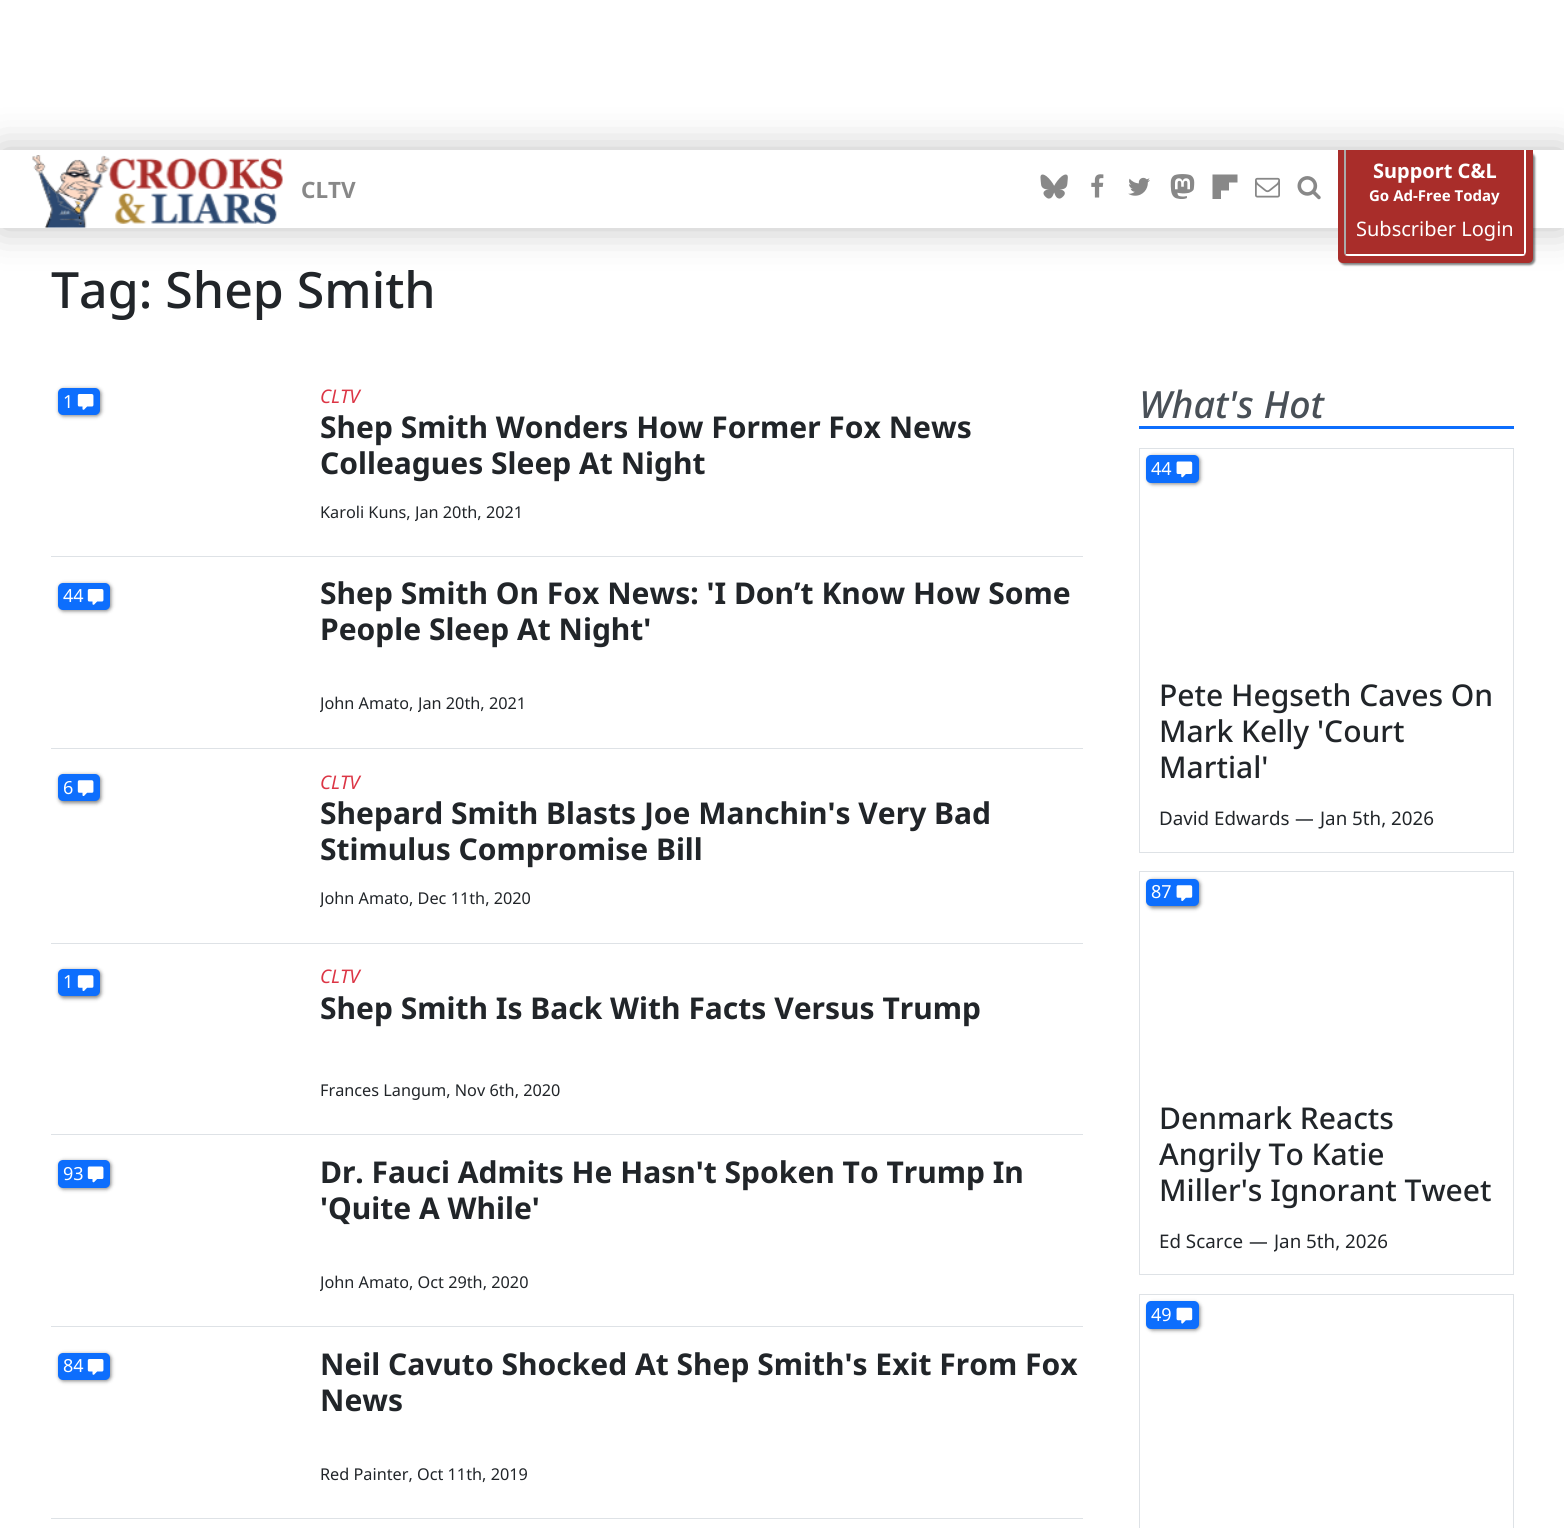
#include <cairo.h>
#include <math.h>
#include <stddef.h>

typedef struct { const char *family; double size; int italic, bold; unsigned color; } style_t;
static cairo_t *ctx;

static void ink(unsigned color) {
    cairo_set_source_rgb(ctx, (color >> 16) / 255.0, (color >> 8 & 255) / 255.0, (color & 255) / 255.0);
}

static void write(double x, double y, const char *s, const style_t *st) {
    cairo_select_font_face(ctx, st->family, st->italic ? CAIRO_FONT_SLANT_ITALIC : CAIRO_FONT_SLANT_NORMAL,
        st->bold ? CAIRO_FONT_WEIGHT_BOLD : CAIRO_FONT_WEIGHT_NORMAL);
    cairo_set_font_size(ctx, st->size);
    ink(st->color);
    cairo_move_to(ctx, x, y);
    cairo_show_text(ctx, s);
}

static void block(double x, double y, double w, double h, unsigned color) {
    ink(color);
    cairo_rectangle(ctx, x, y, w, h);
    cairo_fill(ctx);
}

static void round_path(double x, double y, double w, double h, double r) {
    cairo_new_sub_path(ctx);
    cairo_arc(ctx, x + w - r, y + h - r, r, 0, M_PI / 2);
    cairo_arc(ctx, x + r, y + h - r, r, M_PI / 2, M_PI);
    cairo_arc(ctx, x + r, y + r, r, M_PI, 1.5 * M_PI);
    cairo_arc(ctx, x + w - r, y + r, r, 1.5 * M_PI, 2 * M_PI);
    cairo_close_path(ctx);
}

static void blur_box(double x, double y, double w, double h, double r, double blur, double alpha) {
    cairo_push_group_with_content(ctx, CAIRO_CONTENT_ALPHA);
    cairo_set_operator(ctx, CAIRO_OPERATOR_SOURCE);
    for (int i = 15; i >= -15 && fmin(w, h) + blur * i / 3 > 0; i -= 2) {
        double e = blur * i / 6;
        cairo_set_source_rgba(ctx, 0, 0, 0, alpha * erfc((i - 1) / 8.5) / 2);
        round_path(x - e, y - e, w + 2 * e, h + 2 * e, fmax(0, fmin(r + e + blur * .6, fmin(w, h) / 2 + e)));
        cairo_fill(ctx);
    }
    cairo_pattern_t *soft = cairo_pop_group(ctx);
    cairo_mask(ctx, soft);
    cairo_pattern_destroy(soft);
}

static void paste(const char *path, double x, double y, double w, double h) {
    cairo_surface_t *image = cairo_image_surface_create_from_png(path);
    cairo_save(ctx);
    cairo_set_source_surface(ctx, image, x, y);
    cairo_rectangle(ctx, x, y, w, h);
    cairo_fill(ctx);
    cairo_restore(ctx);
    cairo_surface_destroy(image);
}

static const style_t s1 = {"Noto Sans", 22.5, 0, 1, 0x888888};
static const style_t s2 = {"Noto Sans", 20, 0, 1, 0xffffff};
static const style_t s3 = {"Noto Sans", 15, 0, 1, 0xffffff};
static const style_t s4 = {"Noto Sans", 20, 0, 0, 0xffffff};
static const style_t s5 = {"Noto Sans Medium", 50, 0, 0, 0x212529};
static const style_t s6 = {"Noto Sans", 18, 0, 0, 0xffffff};
static const style_t s7 = {"Noto Sans", 18.75, 1, 0, 0xdc3545};
static const style_t s8 = {"Noto Sans", 30, 0, 1, 0x212529};
static const style_t s9 = {"Noto Sans", 16.25, 0, 0, 0x212529};
static const style_t s10 = {"Noto Sans Medium", 37.5, 1, 0, 0x495057};
static const style_t s11 = {"Noto Sans Medium", 30, 0, 0, 0x212529};
static const style_t s12 = {"Noto Sans", 18.75, 0, 0, 0x212529};

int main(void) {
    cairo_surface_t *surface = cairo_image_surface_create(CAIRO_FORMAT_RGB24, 1564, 1528);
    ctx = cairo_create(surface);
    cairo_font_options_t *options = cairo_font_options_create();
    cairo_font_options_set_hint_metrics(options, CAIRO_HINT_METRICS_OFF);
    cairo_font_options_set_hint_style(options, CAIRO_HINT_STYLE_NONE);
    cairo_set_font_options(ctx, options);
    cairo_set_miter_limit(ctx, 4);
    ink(0xffffff);
    cairo_paint(ctx);
    ink(0x000000);
    blur_box(0, 150, 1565, 78, 0, 20, 0.25);
    block(0, 150, 1564, 78, 0xffffff);
    paste("pic1.png", 32, 155, 251, 73);
    write(301, 198, "CLTV", &s1);
    paste("pic2.png", 1040, 174, 28, 25);
    paste("pic3.png", 1091, 174, 13, 24);
    paste("pic4.png", 1128, 177, 22, 19);
    paste("pic5.png", 1170, 174, 25, 25);
    cairo_new_path(ctx);
    cairo_move_to(ctx, 1212.5, 186.5);
    cairo_line_to(ctx, 1212.5, 199);
    cairo_line_to(ctx, 1221, 199);
    cairo_line_to(ctx, 1221, 190.5);
    cairo_line_to(ctx, 1229, 190.5);
    cairo_line_to(ctx, 1229, 182.5);
    cairo_line_to(ctx, 1237.5, 182.5);
    cairo_line_to(ctx, 1237.5, 174.5);
    cairo_line_to(ctx, 1212.5, 174.5);
    cairo_close_path(ctx);
    cairo_fill(ctx);
    paste("pic6.png", 1255, 177, 25, 21);
    paste("pic7.png", 1297, 176, 24, 24);
    ink(0x000000);
    blur_box(1340, 153, 195, 112, 5, 1, 0.5);
    ink(0xa92d2a);
    cairo_new_path(ctx);
    cairo_move_to(ctx, 1338, 150);
    cairo_line_to(ctx, 1533, 150);
    cairo_line_to(ctx, 1533, 258);
    cairo_curve_to(ctx, 1533, 261, 1531, 263, 1528, 263);
    cairo_line_to(ctx, 1343, 263);
    cairo_curve_to(ctx, 1340, 263, 1338, 261, 1338, 258);
    cairo_close_path(ctx);
    cairo_fill(ctx);
    ink(0xffffff);
    cairo_new_path(ctx);
    cairo_move_to(ctx, 1526, 150);
    cairo_line_to(ctx, 1524, 150);
    cairo_line_to(ctx, 1524, 251);
    cairo_line_to(ctx, 1523, 253);
    cairo_line_to(ctx, 1525, 255);
    cairo_line_to(ctx, 1526, 252);
    cairo_close_path(ctx);
    cairo_fill(ctx);
    cairo_new_path(ctx);
    cairo_move_to(ctx, 1525, 255);
    cairo_curve_to(ctx, 1524, 256, 1522, 256, 1521, 256);
    cairo_line_to(ctx, 1349, 256);
    cairo_curve_to(ctx, 1348, 256, 1346, 256, 1345, 255);
    cairo_line_to(ctx, 1347, 253);
    cairo_line_to(ctx, 1349, 254);
    cairo_line_to(ctx, 1521, 254);
    cairo_line_to(ctx, 1523, 253);
    cairo_close_path(ctx);
    cairo_fill(ctx);
    ink(0xaaaaaa);
    cairo_new_path(ctx);
    cairo_move_to(ctx, 1344, 150);
    cairo_line_to(ctx, 1346, 150);
    cairo_line_to(ctx, 1346, 251);
    cairo_line_to(ctx, 1347, 253);
    cairo_line_to(ctx, 1345, 255);
    cairo_curve_to(ctx, 1344, 254, 1344, 252, 1344, 251);
    cairo_close_path(ctx);
    cairo_fill(ctx);
    write(1373, 178, "Support C&L", &s2);
    write(1369, 201, "Go Ad-Free Today", &s3);
    block(1346, 251, 178, 3, 0xa92d2a);
    write(1356, 236, "Subscriber Login", &s4);
    write(51, 308, "Tag: Shep Smith", &s5);
    block(51, 556, 1032, 1, 0xdee2e6);
    ink(0x000000);
    blur_box(59, 389, 42, 27, 5, 2, 0.5);
    ink(0x0d6efd);
    round_path(58, 388, 42, 27, 5);
    cairo_fill(ctx);
    write(63, 408, "1", &s6);
    paste("pic8.png", 77, 394, 17, 16);
    write(320, 403, "CLTV", &s7);
    write(320, 438, "Shep Smith Wonders How Former Fox News", &s8);
    write(320, 474, "Colleagues Sleep At Night", &s8);
    write(320, 518, "Karoli Kuns,", &s9);
    cairo_save(ctx);
    cairo_rectangle(ctx, 415, 500, 108, 25);
    cairo_clip(ctx);
    write(415, 518, "Jan 20th, 2021", &s9);
    cairo_restore(ctx);
    block(51, 748, 1032, 1, 0xdee2e6);
    ink(0x000000);
    blur_box(59, 584, 52, 27, 5, 2, 0.5);
    ink(0x0d6efd);
    round_path(58, 583, 52, 27, 5);
    cairo_fill(ctx);
    write(63, 602, "44", &s6);
    paste("pic8.png", 87, 589, 17, 16);
    write(320, 604, "Shep Smith On Fox News: 'I Don’t Know How Some", &s8);
    write(320, 640, "People Sleep At Night'", &s8);
    cairo_save(ctx);
    cairo_rectangle(ctx, 320, 693, 98, 23);
    cairo_clip(ctx);
    write(320, 709, "John Amato", &s9);
    cairo_restore(ctx);
    write(409, 709, ",", &s9);
    cairo_save(ctx);
    cairo_rectangle(ctx, 418, 693, 108, 23);
    cairo_clip(ctx);
    write(418, 709, "Jan 20th, 2021", &s9);
    cairo_restore(ctx);
    block(51, 943, 1032, 1, 0xdee2e6);
    ink(0x000000);
    blur_box(59, 775, 42, 28, 5, 2, 0.5);
    ink(0x0d6efd);
    round_path(58, 774, 42, 27, 5);
    cairo_fill(ctx);
    write(63, 794, "6", &s6);
    paste("pic9.png", 77, 780, 17, 16);
    write(320, 789, "CLTV", &s7);
    write(320, 824, "Shepard Smith Blasts Joe Manchin's Very Bad", &s8);
    write(320, 860, "Stimulus Compromise Bill", &s8);
    cairo_save(ctx);
    cairo_rectangle(ctx, 320, 886, 98, 25);
    cairo_clip(ctx);
    write(320, 904, "John Amato", &s9);
    cairo_restore(ctx);
    write(409, 904, ", Dec 11th, 2020", &s9);
    block(51, 1134, 1032, 1, 0xdee2e6);
    ink(0x000000);
    blur_box(59, 970, 42, 28, 5, 2, 0.5);
    ink(0x0d6efd);
    round_path(58, 969, 42, 27, 5);
    cairo_fill(ctx);
    write(63, 988, "1", &s6);
    paste("pic9.png", 77, 975, 17, 16);
    write(320, 983, "CLTV", &s7);
    write(320, 1019, "Shep Smith Is Back With Facts Versus Trump", &s8);
    write(320, 1096, "Frances Langum, Nov 6th, 2020", &s9);
    block(51, 1326, 1032, 1, 0xdee2e6);
    ink(0x000000);
    blur_box(59, 1161, 52, 28, 5, 2, 0.5);
    ink(0x0d6efd);
    round_path(58, 1160, 52, 28, 5);
    cairo_fill(ctx);
    write(63, 1180, "93", &s6);
    paste("pic10.png", 87, 1166, 17, 17);
    write(320, 1183, "Dr. Fauci Admits He Hasn't Spoken To Trump In", &s8);
    write(320, 1219, "'Quite A While'", &s8);
    cairo_save(ctx);
    cairo_rectangle(ctx, 320, 1270, 98, 25);
    cairo_clip(ctx);
    write(320, 1288, "John Amato", &s9);
    cairo_restore(ctx);
    write(409, 1288, ", Oct 29th, 2020", &s9);
    block(51, 1518, 1032, 1, 0xdee2e6);
    ink(0x000000);
    blur_box(59, 1354, 52, 27, 5, 2, 0.5);
    ink(0x0d6efd);
    round_path(58, 1353, 52, 27, 5);
    cairo_fill(ctx);
    write(63, 1372, "84", &s6);
    paste("pic8.png", 87, 1359, 17, 16);
    write(320, 1375, "Neil Cavuto Shocked At Shep Smith's Exit From Fox", &s8);
    write(320, 1411, "News", &s8);
    write(320, 1480, "Red Painter, Oct 11th, 2019", &s9);
    block(1139, 426, 375, 3, 0x0d6efd);
    write(1139, 418, "What's Hot", &s10);
    cairo_rectangle(ctx, 1139.5, 448.5, 374, 404);
    ink(0xdee2e6);
    cairo_set_line_width(ctx, 1);
    cairo_stroke(ctx);
    ink(0x000000);
    blur_box(1148, 456, 52, 28, 5, 2, 0.5);
    ink(0x0d6efd);
    round_path(1146, 455, 53, 28, 5);
    cairo_fill(ctx);
    write(1151, 475, "44", &s6);
    paste("pic11.png", 1176, 461, 17, 17);
    write(1159, 706, "Pete Hegseth Caves On", &s11);
    write(1159, 742, "Mark Kelly 'Court", &s11);
    write(1159, 778, "Martial'", &s11);
    write(1159, 825, "David Edwards", &s12);
    write(1295, 825, "—", &s12);
    write(1320, 825, "Jan 5th, 2026", &s12);
    cairo_rectangle(ctx, 1139.5, 871.5, 374, 403);
    ink(0xdee2e6);
    cairo_stroke(ctx);
    ink(0x000000);
    blur_box(1148, 880, 52, 28, 5, 2, 0.5);
    ink(0x0d6efd);
    round_path(1146, 879, 53, 27, 5);
    cairo_fill(ctx);
    write(1151, 898, "87", &s6);
    paste("pic12.png", 1176, 885, 17, 16);
    write(1159, 1129, "Denmark Reacts", &s11);
    write(1159, 1165, "Angrily To Katie", &s11);
    write(1159, 1201, "Miller's Ignorant Tweet", &s11);
    write(1159, 1248, "Ed Scarce", &s12);
    write(1249, 1248, "—", &s12);
    cairo_save(ctx);
    cairo_rectangle(ctx, 1274, 1228, 114, 27);
    cairo_clip(ctx);
    write(1274, 1248, "Jan 5th, 2026", &s12);
    cairo_restore(ctx);
    cairo_rectangle(ctx, 1139.5, 1294.5, 374, 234);
    ink(0xdee2e6);
    cairo_stroke(ctx);
    ink(0x000000);
    blur_box(1148, 1303, 52, 27, 5, 2, 0.5);
    ink(0x0d6efd);
    round_path(1146, 1301, 53, 28, 5);
    cairo_fill(ctx);
    write(1151, 1321, "49", &s6);
    paste("pic13.png", 1176, 1307, 17, 17);
    cairo_surface_write_to_png(surface, "screenshot.png");
    cairo_font_options_destroy(options);
    cairo_destroy(ctx);
    cairo_surface_destroy(surface);
    return 0;
}
